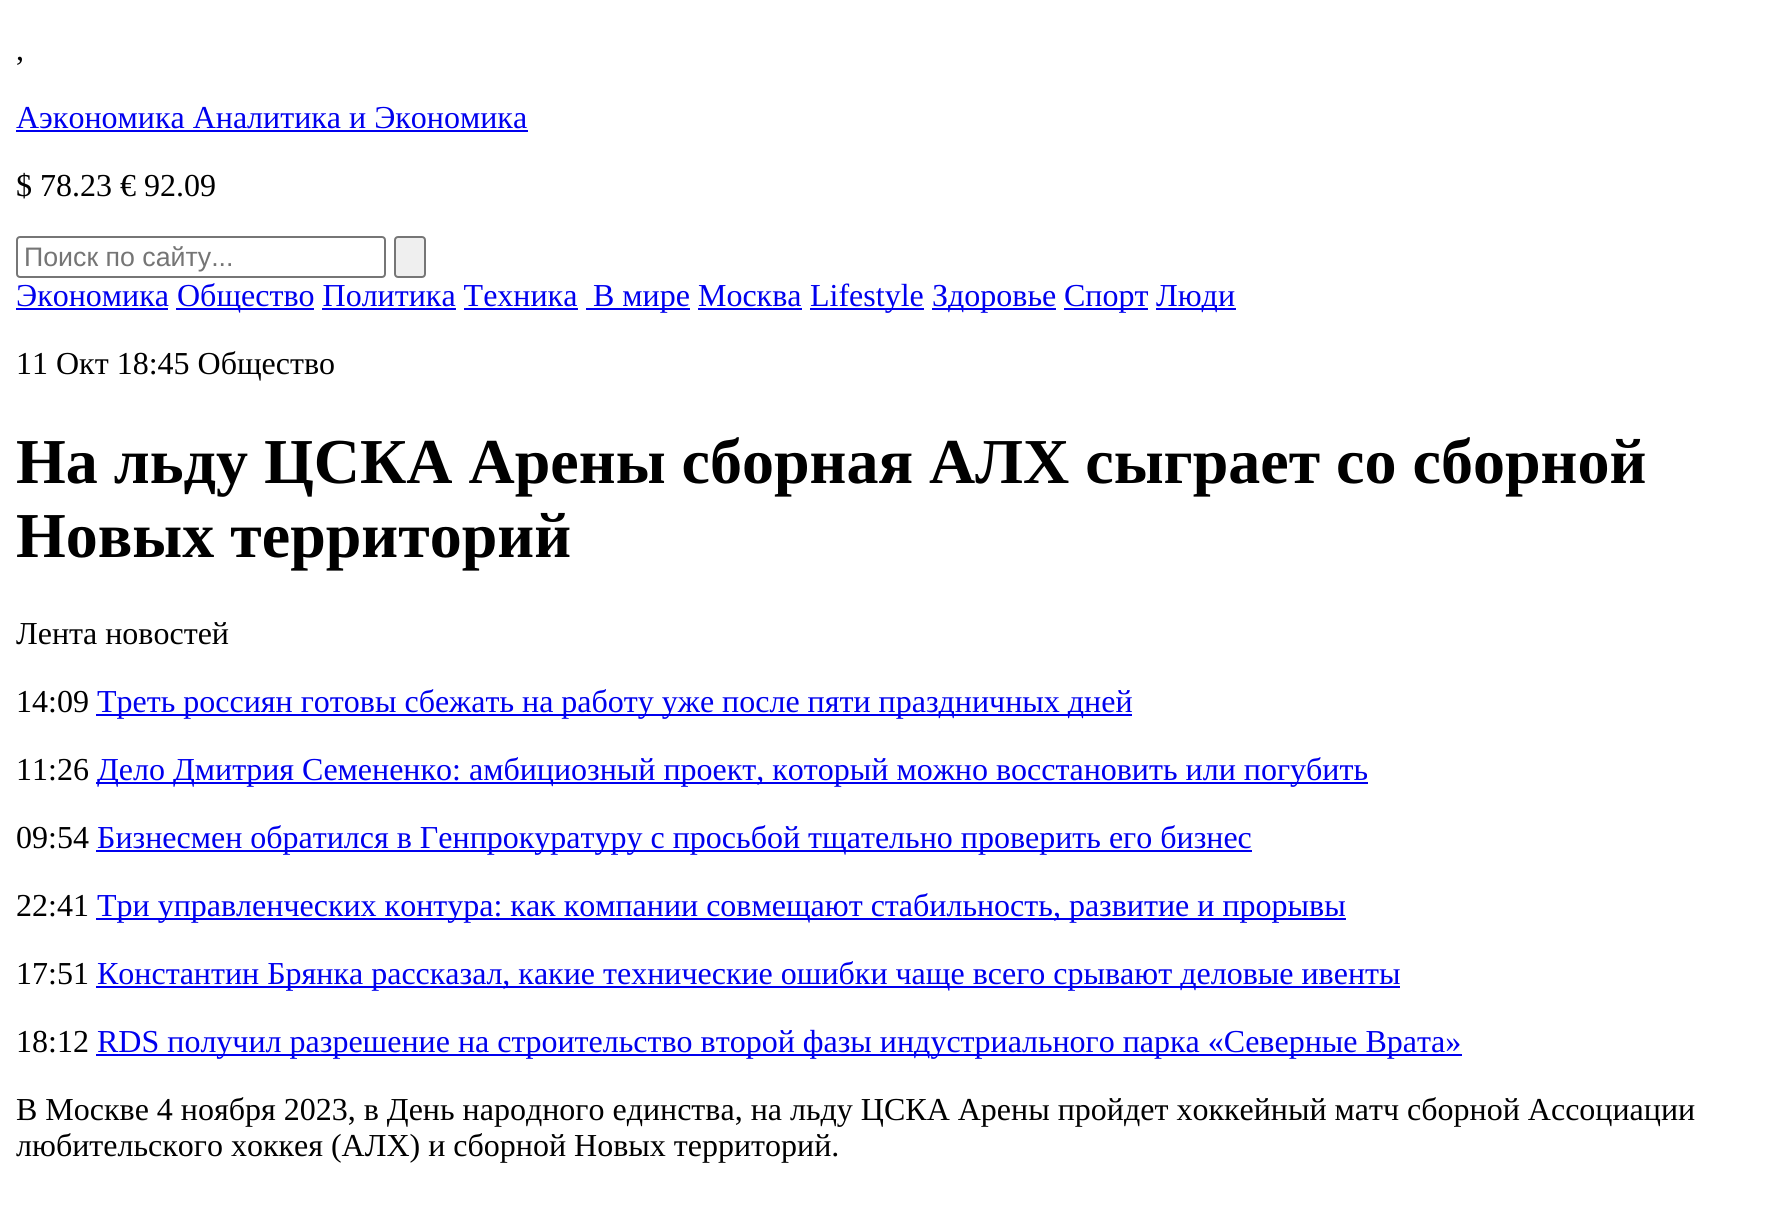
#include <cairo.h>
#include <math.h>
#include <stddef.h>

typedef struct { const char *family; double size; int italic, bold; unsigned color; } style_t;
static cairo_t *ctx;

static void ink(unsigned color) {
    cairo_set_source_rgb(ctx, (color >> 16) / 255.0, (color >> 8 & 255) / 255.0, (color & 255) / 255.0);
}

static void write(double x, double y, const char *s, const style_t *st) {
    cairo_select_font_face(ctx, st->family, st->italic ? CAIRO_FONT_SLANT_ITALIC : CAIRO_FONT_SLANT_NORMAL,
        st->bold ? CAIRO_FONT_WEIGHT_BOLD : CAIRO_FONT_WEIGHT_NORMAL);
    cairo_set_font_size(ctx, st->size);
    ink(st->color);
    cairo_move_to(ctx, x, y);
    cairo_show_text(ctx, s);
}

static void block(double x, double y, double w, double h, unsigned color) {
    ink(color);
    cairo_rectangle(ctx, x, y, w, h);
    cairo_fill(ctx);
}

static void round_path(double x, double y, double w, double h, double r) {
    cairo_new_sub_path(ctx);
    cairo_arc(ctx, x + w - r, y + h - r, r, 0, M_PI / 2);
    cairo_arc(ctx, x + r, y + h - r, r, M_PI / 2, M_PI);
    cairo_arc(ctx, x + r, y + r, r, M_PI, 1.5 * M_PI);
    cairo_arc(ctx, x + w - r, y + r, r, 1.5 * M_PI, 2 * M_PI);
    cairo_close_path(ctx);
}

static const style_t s1 = {"Liberation Serif", 32, 0, 0, 0x000000};
static const style_t s2 = {"Liberation Serif", 32, 0, 0, 0x0000ee};
static const style_t s3 = {"Liberation Sans", 26.75, 0, 0, 0x757575};
static const style_t s4 = {"Liberation Serif", 64, 0, 1, 0x000000};

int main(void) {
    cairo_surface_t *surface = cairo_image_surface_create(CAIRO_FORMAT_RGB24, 1773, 1207);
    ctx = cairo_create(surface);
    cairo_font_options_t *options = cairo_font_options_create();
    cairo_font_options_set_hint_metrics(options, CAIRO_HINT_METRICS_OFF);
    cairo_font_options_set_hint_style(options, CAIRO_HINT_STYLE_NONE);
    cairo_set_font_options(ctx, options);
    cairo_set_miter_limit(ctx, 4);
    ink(0xffffff);
    cairo_paint(ctx);
    write(16, 60, ",", &s1);
    write(16, 128, "Аэкономика Аналитика и Экономика", &s2);
    block(16, 130, 512, 2, 0x0000ee);
    write(16, 196, "$ 78.23 € 92.09", &s1);
    round_path(17, 237, 368, 40, 3);
    ink(0x767676);
    cairo_stroke(ctx);
    write(24, 266, "Поиск по сайту...", &s3);
    ink(0xefefef);
    round_path(395, 237, 30, 40, 3);
    cairo_fill_preserve(ctx);
    ink(0x767676);
    cairo_stroke(ctx);
    write(16, 306, "Экономика", &s2);
    block(16, 308, 152, 2, 0x0000ee);
    block(176, 308, 138, 2, 0x0000ee);
    write(177, 306, "Общество Политика Техника", &s2);
    block(586, 308, 104, 2, 0x0000ee);
    write(593, 306, "В мире Москва", &s2);
    block(810, 308, 114, 2, 0x0000ee);
    write(810, 306, "Lifestyle", &s2);
    block(932, 308, 124, 2, 0x0000ee);
    write(932, 306, "Здоровье", &s2);
    block(1064, 308, 84, 2, 0x0000ee);
    write(1064, 306, "Спорт", &s2);
    block(1156, 308, 80, 2, 0x0000ee);
    write(1156, 306, "Люди", &s2);
    block(322, 308, 134, 2, 0x0000ee);
    block(464, 308, 114, 2, 0x0000ee);
    block(698, 308, 104, 2, 0x0000ee);
    write(16, 374, "11 Окт 18:45 Общество", &s1);
    write(16, 483, "На льду ЦСКА Арены сборная АЛХ сыграет со сборной", &s4);
    write(16, 557, "Новых территорий", &s4);
    write(16, 644, "Лента новостей", &s1);
    write(16, 712, "14:09", &s1);
    block(96, 714, 1036, 2, 0x0000ee);
    write(97, 712, "Треть россиян готовы сбежать на работу уже после пяти праздничных дней", &s2);
    write(16, 780, "11:26", &s1);
    block(96, 782, 1272, 2, 0x0000ee);
    write(97, 780, "Дело Дмитрия Семененко: амбициозный проект, который можно восстановить или погубить", &s2);
    write(16, 848, "09:54", &s1);
    block(96, 850, 1156, 2, 0x0000ee);
    write(97, 848, "Бизнесмен обратился в Генпрокуратуру с просьбой тщательно проверить его бизнес", &s2);
    write(16, 916, "22:41", &s1);
    block(96, 918, 1250, 2, 0x0000ee);
    write(97, 916, "Три управленческих контура: как компании совмещают стабильность, развитие и прорывы", &s2);
    write(16, 984, "17:51", &s1);
    block(96, 986, 1304, 2, 0x0000ee);
    write(97, 984, "Константин Брянка рассказал, какие технические ошибки чаще всего срывают деловые ивенты", &s2);
    write(16, 1052, "18:12", &s1);
    block(96, 1054, 1366, 2, 0x0000ee);
    write(97, 1052, "RDS получил разрешение на строительство второй фазы индустриального парка «Северные Врата»", &s2);
    write(16, 1120, "В Москве 4 ноября 2023, в День народного единства, на льду ЦСКА Арены пройдет хоккейный матч сборной Ассоциации", &s1);
    write(16, 1156, "любительского хоккея (АЛХ) и сборной Новых территорий.", &s1);
    cairo_surface_write_to_png(surface, "screenshot.png");
    cairo_font_options_destroy(options);
    cairo_destroy(ctx);
    cairo_surface_destroy(surface);
    return 0;
}
